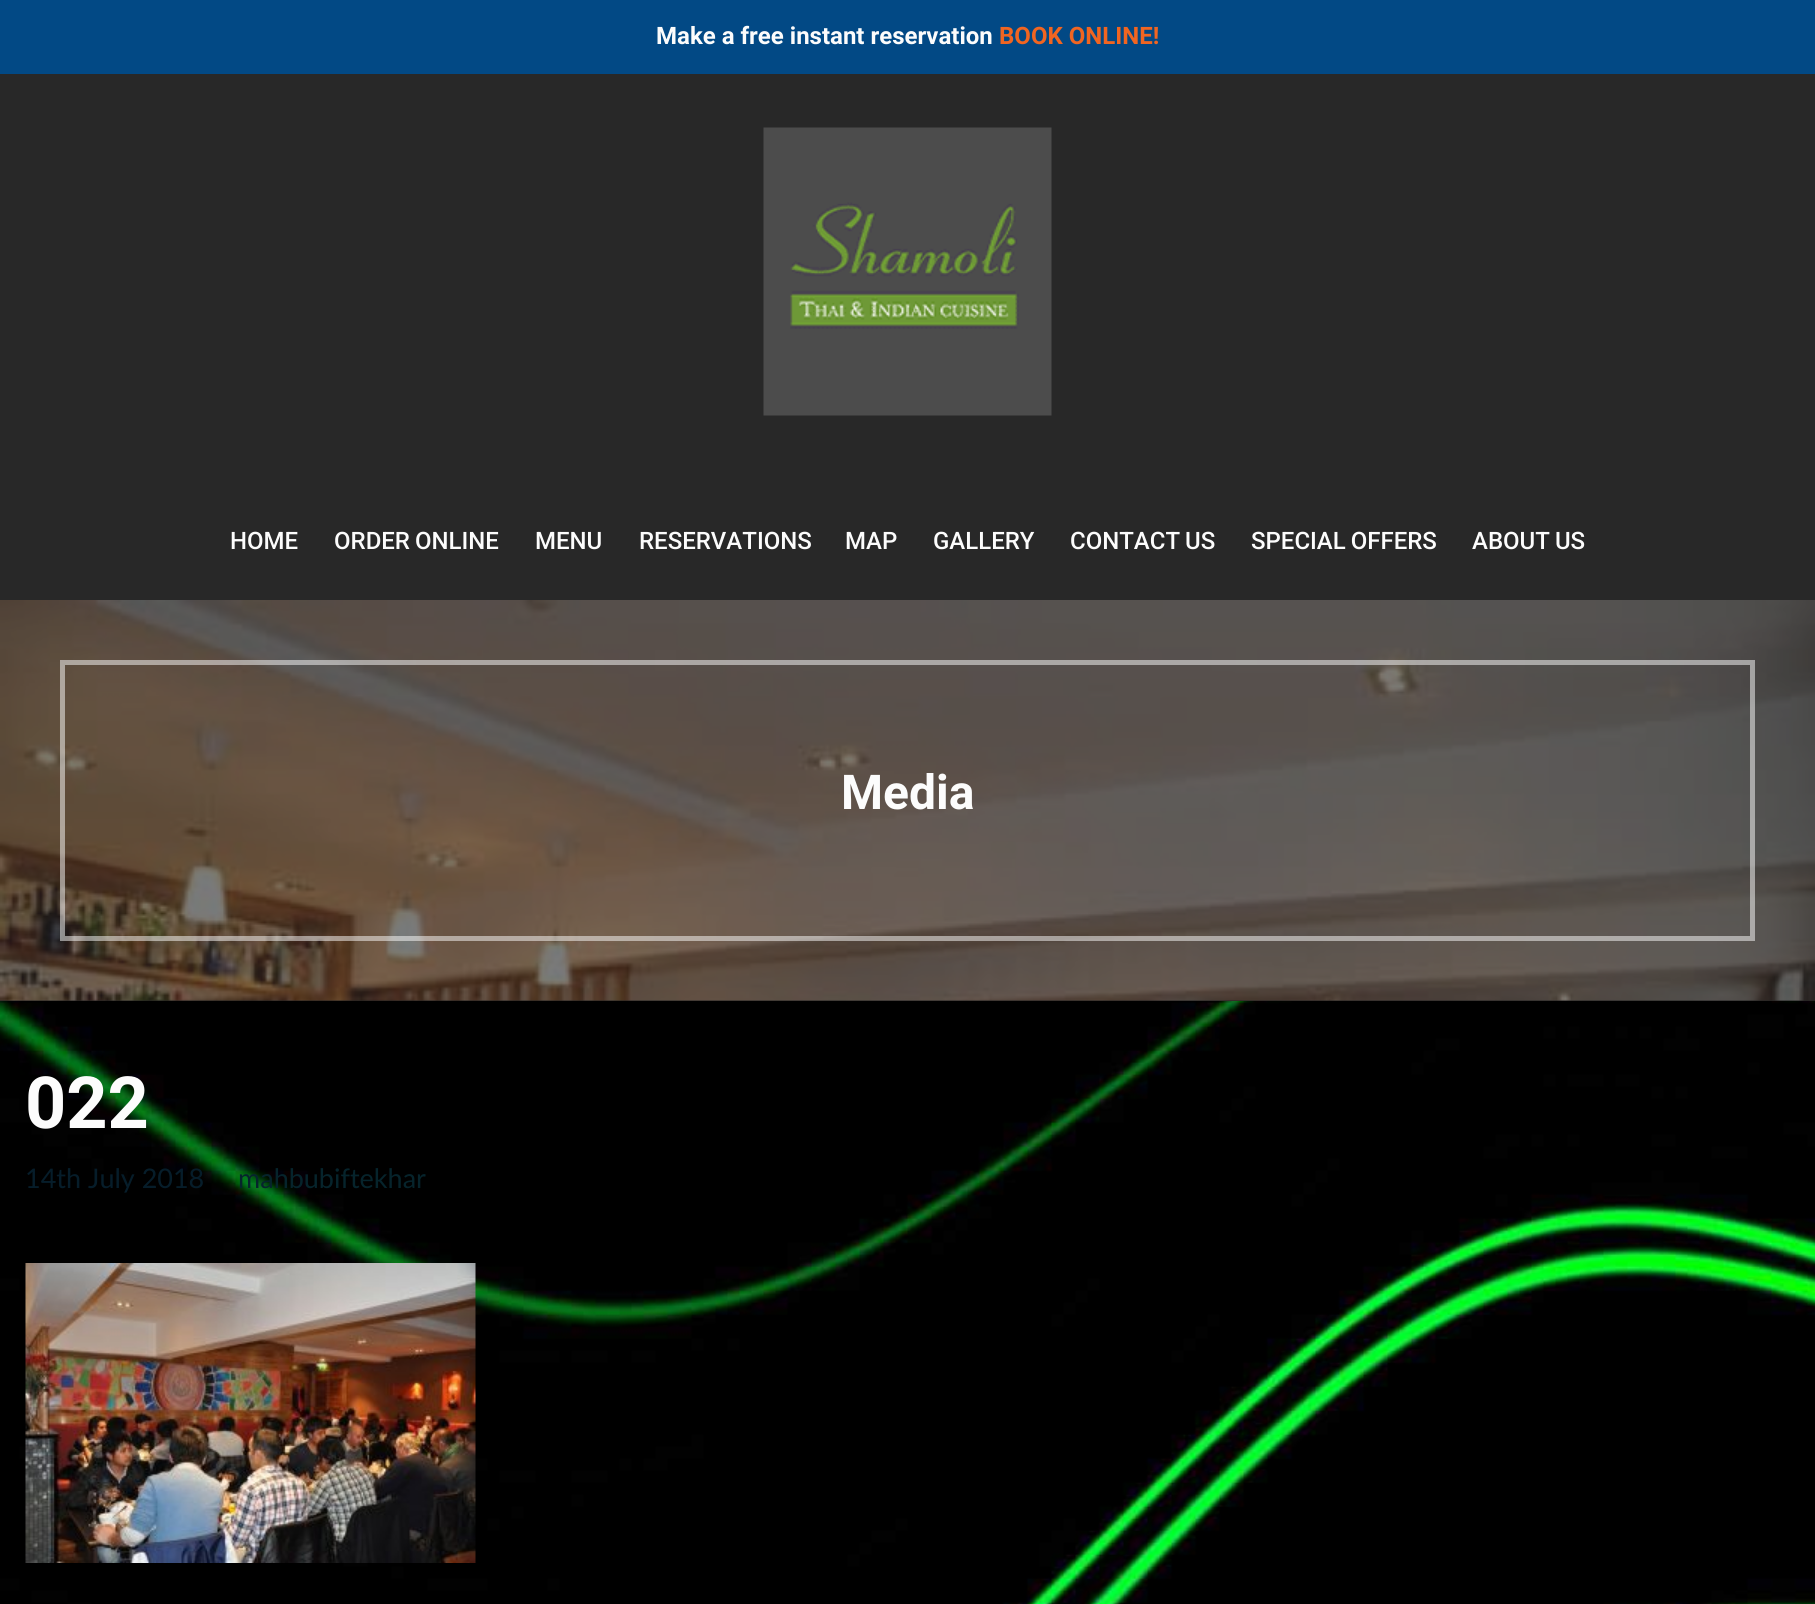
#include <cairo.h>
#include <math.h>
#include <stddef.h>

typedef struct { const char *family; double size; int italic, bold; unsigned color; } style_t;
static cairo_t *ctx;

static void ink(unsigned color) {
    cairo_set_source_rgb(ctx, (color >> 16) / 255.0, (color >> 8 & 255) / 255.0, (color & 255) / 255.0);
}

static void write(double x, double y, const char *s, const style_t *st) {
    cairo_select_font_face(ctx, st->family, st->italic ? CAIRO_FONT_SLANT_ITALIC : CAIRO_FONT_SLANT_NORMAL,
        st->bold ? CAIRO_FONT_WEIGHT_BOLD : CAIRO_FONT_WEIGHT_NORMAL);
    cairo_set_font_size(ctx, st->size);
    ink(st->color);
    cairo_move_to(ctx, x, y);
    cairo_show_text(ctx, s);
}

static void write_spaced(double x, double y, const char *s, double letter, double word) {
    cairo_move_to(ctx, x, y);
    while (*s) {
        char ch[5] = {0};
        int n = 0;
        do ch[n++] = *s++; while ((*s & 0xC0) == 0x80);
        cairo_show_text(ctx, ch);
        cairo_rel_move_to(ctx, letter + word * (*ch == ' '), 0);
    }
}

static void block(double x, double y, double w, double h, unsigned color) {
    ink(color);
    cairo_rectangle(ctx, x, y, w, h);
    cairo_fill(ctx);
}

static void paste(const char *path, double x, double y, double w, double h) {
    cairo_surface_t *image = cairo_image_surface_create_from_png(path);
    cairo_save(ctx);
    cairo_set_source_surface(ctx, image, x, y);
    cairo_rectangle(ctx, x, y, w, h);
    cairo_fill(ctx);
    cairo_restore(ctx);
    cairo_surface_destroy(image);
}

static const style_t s1 = {"Roboto", 24, 0, 1, 0xfcfcfc};
static const style_t s2 = {"Roboto", 24, 0, 1, 0xf16521};
static const style_t s3 = {"Roboto Medium", 24, 0, 0, 0xfcfcfc};
static const style_t s4 = {"Roboto", 48, 0, 1, 0xfcfcfc};
static const style_t s5 = {"Roboto", 72, 0, 1, 0xfcfcfc};
static const style_t s6 = {"Lato", 27, 0, 0, 0x061d2a};
static const style_t s7 = {"Lato", 27, 0, 0, 0x06242c};

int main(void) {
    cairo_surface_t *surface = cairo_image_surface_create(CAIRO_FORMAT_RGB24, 1815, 1604);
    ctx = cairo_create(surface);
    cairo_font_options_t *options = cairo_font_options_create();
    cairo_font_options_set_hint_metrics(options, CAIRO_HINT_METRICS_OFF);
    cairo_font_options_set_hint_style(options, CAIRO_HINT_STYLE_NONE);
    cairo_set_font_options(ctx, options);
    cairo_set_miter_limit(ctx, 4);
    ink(0xffffff);
    cairo_paint(ctx);
    paste("pic1.png", 0, 1001, 1815, 603);
    block(0, 0, 1815, 74, 0x024985);
    write(656, 44, "Make a free instant reservation", &s1);
    write(999, 44, "BOOK ONLINE!", &s2);
    block(0, 74, 1815, 526, 0x282828);
    paste("pic2.png", 763, 127, 289, 289);
    write(230, 549, "HOME", &s3);
    write_spaced(334, 549, "ORDER ONLINE", 0, -1);
    write(535, 549, "MENU", &s3);
    write(639, 549, "RESERVATIONS", &s3);
    write(845, 549, "MAP", &s3);
    write(933, 549, "GALLERY", &s3);
    write_spaced(1070, 549, "CONTACT US", 0, -1);
    write_spaced(1251, 549, "SPECIAL OFFERS", 0, -1);
    write_spaced(1472, 549, "ABOUT US", 0, -1);
    block(0, 1000, 1815, 1, 0x262626);
    paste("pic3.png", 0, 600, 1815, 401);
    cairo_set_source_rgba(ctx, 0.149, 0.149, 0.149, 0.61);
    cairo_rectangle(ctx, 0, 600, 1815, 401);
    cairo_fill(ctx);
    cairo_rectangle(ctx, 62.5, 662.5, 1690, 276);
    cairo_set_source_rgba(ctx, 1, 1, 1, 0.5);
    cairo_set_line_width(ctx, 5);
    cairo_stroke(ctx);
    write(841, 809, "Media", &s4);
    write(25, 1128, "022", &s5);
    write(25, 1188, "14th July 2018", &s6);
    write(238, 1188, "mahbubiftekhar", &s7);
    paste("pic4.png", 25, 1263, 451, 300);
    cairo_surface_write_to_png(surface, "screenshot.png");
    cairo_font_options_destroy(options);
    cairo_destroy(ctx);
    cairo_surface_destroy(surface);
    return 0;
}
